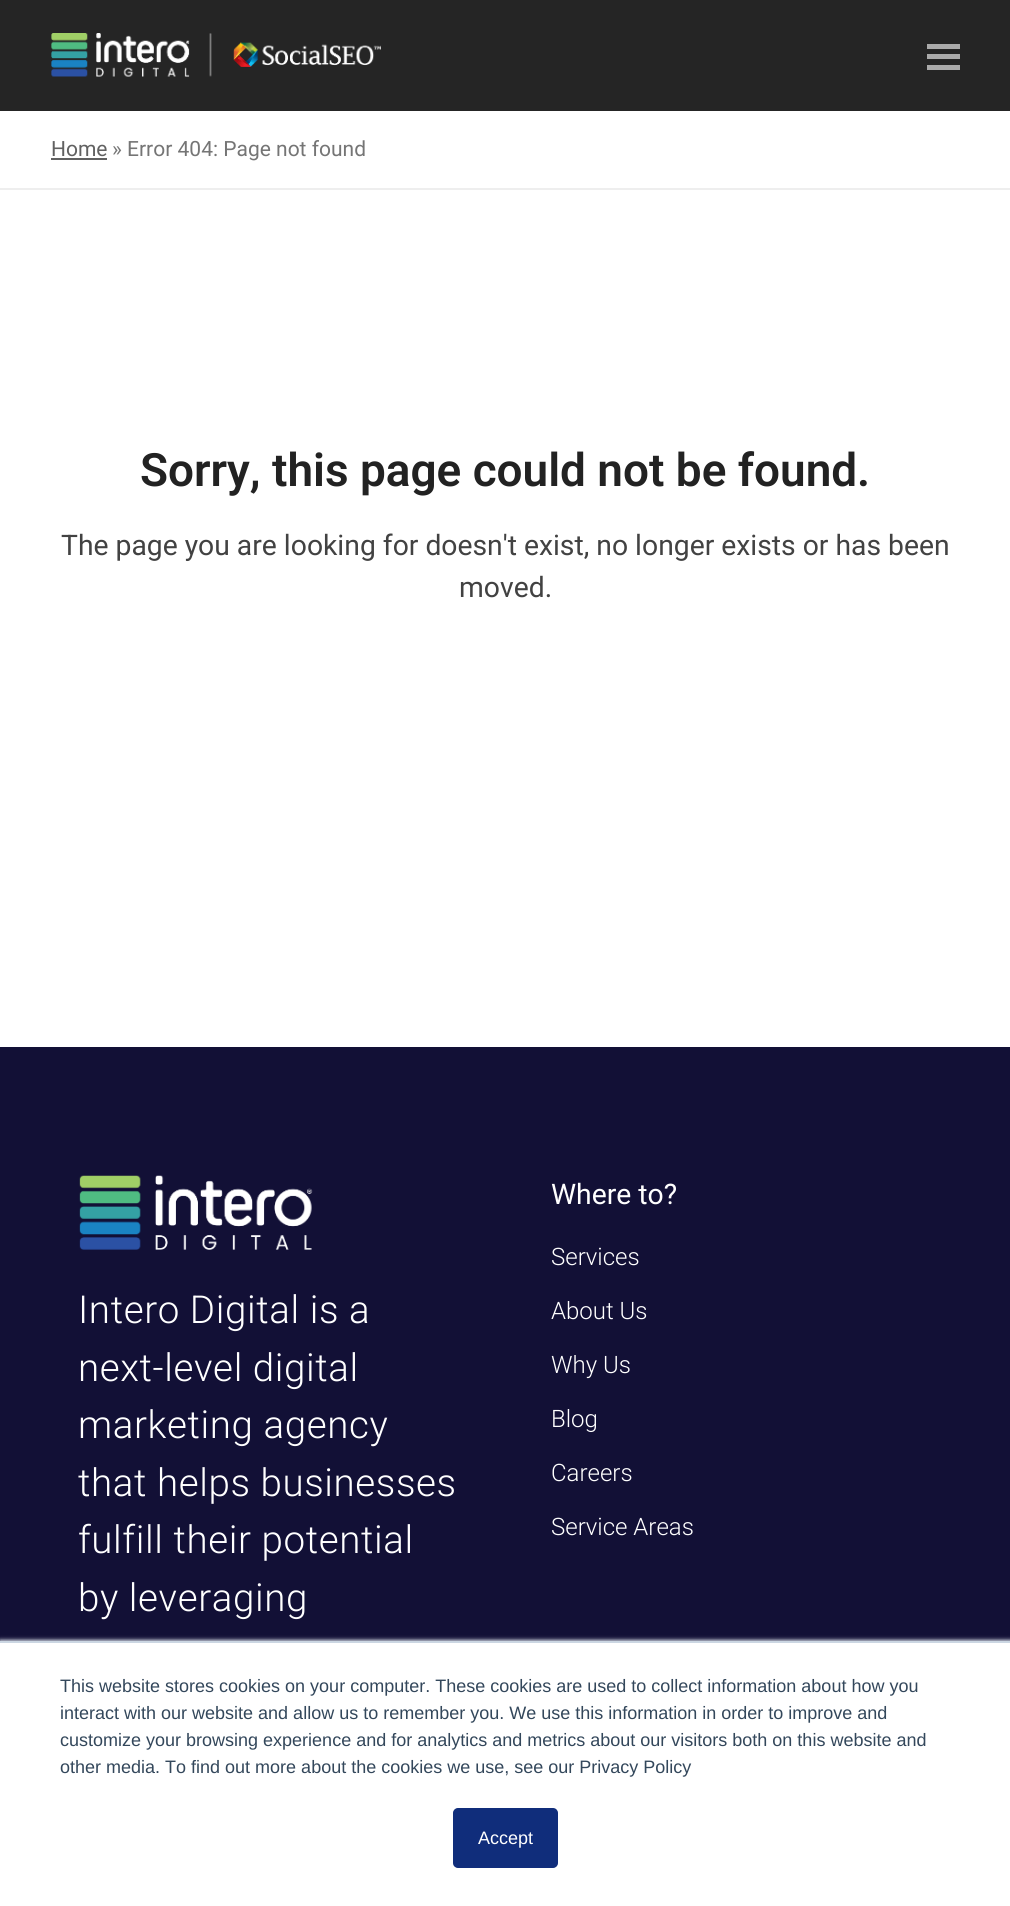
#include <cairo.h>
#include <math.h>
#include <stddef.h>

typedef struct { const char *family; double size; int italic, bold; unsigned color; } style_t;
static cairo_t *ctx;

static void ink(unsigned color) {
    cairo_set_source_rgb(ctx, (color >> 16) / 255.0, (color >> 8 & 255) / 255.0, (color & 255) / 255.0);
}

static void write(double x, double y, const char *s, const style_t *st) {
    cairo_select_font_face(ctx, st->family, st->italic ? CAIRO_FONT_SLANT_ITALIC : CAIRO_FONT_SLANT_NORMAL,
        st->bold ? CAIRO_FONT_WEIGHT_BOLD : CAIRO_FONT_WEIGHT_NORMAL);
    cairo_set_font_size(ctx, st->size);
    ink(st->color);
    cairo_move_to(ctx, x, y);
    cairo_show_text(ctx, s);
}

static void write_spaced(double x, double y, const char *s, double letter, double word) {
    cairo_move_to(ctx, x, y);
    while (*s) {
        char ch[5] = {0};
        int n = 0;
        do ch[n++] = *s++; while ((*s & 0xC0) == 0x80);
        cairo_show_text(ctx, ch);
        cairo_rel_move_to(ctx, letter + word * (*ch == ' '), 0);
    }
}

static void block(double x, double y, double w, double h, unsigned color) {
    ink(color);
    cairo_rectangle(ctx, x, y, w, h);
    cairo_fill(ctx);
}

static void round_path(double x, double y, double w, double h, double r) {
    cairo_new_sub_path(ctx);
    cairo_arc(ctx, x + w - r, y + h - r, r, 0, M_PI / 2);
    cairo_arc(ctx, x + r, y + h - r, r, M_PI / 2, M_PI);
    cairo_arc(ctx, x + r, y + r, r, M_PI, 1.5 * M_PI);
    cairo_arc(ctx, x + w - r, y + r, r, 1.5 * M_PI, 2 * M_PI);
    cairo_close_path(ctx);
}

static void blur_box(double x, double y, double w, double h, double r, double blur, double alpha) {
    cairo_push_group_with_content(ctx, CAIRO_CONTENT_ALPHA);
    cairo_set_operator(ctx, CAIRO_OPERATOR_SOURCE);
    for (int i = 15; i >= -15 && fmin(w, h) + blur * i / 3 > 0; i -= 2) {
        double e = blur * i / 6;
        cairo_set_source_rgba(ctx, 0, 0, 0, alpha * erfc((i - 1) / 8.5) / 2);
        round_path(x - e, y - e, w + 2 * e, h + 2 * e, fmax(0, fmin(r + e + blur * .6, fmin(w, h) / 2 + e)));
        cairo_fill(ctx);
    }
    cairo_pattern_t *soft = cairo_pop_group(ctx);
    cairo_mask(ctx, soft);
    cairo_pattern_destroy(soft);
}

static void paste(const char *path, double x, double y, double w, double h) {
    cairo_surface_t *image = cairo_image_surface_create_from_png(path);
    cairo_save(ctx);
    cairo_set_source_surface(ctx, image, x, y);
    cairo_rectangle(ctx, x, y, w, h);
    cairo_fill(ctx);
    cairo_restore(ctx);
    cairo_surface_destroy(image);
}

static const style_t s1 = {"Roboto", 21, 0, 0, 0x616161};
static const style_t s2 = {"Roboto", 21, 0, 0, 0x757575};
static const style_t s3 = {"Roboto SemiBold", 45.9, 0, 0, 0x222222};
static const style_t s4 = {"Roboto", 28.3, 0, 0, 0x424242};
static const style_t s5 = {"Roboto", 28.3, 0, 0, 0xffffff};
static const style_t s6 = {"Roboto Light", 24, 0, 0, 0xffffff};
static const style_t s7 = {"Liberation Sans", 18, 0, 0, 0x33475b};
static const style_t s8 = {"Liberation Sans", 18, 0, 0, 0xffffff};

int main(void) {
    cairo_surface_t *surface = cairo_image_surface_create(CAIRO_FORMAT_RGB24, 1010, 1906);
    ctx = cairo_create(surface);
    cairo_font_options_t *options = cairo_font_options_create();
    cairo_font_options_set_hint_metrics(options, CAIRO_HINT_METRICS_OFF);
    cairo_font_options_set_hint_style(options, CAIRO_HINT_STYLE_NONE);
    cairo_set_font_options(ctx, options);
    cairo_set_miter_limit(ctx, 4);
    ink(0xffffff);
    cairo_paint(ctx);
    block(0, 0, 1010, 111, 0x252525);
    paste("pic1.png", 51, 33, 330, 44);
    block(927, 54, 33, 5, 0xaaaaaa);
    block(927, 44, 33, 5, 0xaaaaaa);
    block(927, 65, 33, 5, 0xaaaaaa);
    write(51, 156, "Home", &s1);
    block(51, 158, 56, 2, 0x616161);
    write(112, 156, "» Error 404: Page not found", &s2);
    block(0, 188, 1010, 2, 0xeeeeee);
    write(140, 486, "Sorry, this page could not be found.", &s3);
    write(61, 555, "The page you are looking for doesn't exist, no longer exists or has been", &s4);
    write(459, 597, "moved.", &s4);
    block(0, 1047, 1010, 594, 0x121036);
    paste("pic2.png", 79, 1175, 234, 75);
    cairo_select_font_face(ctx, "Roboto Light", CAIRO_FONT_SLANT_NORMAL, CAIRO_FONT_WEIGHT_NORMAL);
    cairo_set_font_size(ctx, 38.5);
    ink(0xffffff);
    write_spaced(78, 1323, "Intero Digital is a", 0.6, 0);
    write_spaced(78, 1381, "next-level digital", 0.6, 0);
    write_spaced(78, 1438, "marketing agency", 0.6, 0);
    write_spaced(78, 1496, "that helps businesses", 0.6, 0);
    write_spaced(78, 1553, "fulfill their potential", 0.6, 0);
    write_spaced(78, 1611, "by leveraging", 0.6, 0);
    write(551, 1204, "Where to?", &s5);
    write(551, 1265, "Services", &s6);
    write(551, 1319, "About Us", &s6);
    write(551, 1373, "Why Us", &s6);
    write(551, 1427, "Blog", &s6);
    write(551, 1481, "Careers", &s6);
    write(551, 1535, "Service Areas", &s6);
    ink(0xeaf0f6);
    blur_box(0, 1640, 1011, 265, 0, 2, 1);
    block(0, 1643, 1010, 263, 0xffffff);
    block(0, 1641, 1010, 2, 0xcbd6e2);
    write(60, 1692, "This website stores cookies on your computer. These cookies are used to collect information about how you", &s7);
    write(60, 1719, "interact with our website and allow us to remember you. We use this information in order to improve and", &s7);
    write(60, 1746, "customize your browsing experience and for analytics and metrics about our visitors both on this website and", &s7);
    write(60, 1773, "other media. To find out more about the cookies we use, see our Privacy Policy", &s7);
    ink(0x102d7b);
    round_path(454, 1809, 103, 58, 4);
    cairo_fill_preserve(ctx);
    cairo_stroke(ctx);
    write(478, 1844, "Accept", &s8);
    cairo_surface_write_to_png(surface, "screenshot.png");
    cairo_font_options_destroy(options);
    cairo_destroy(ctx);
    cairo_surface_destroy(surface);
    return 0;
}
